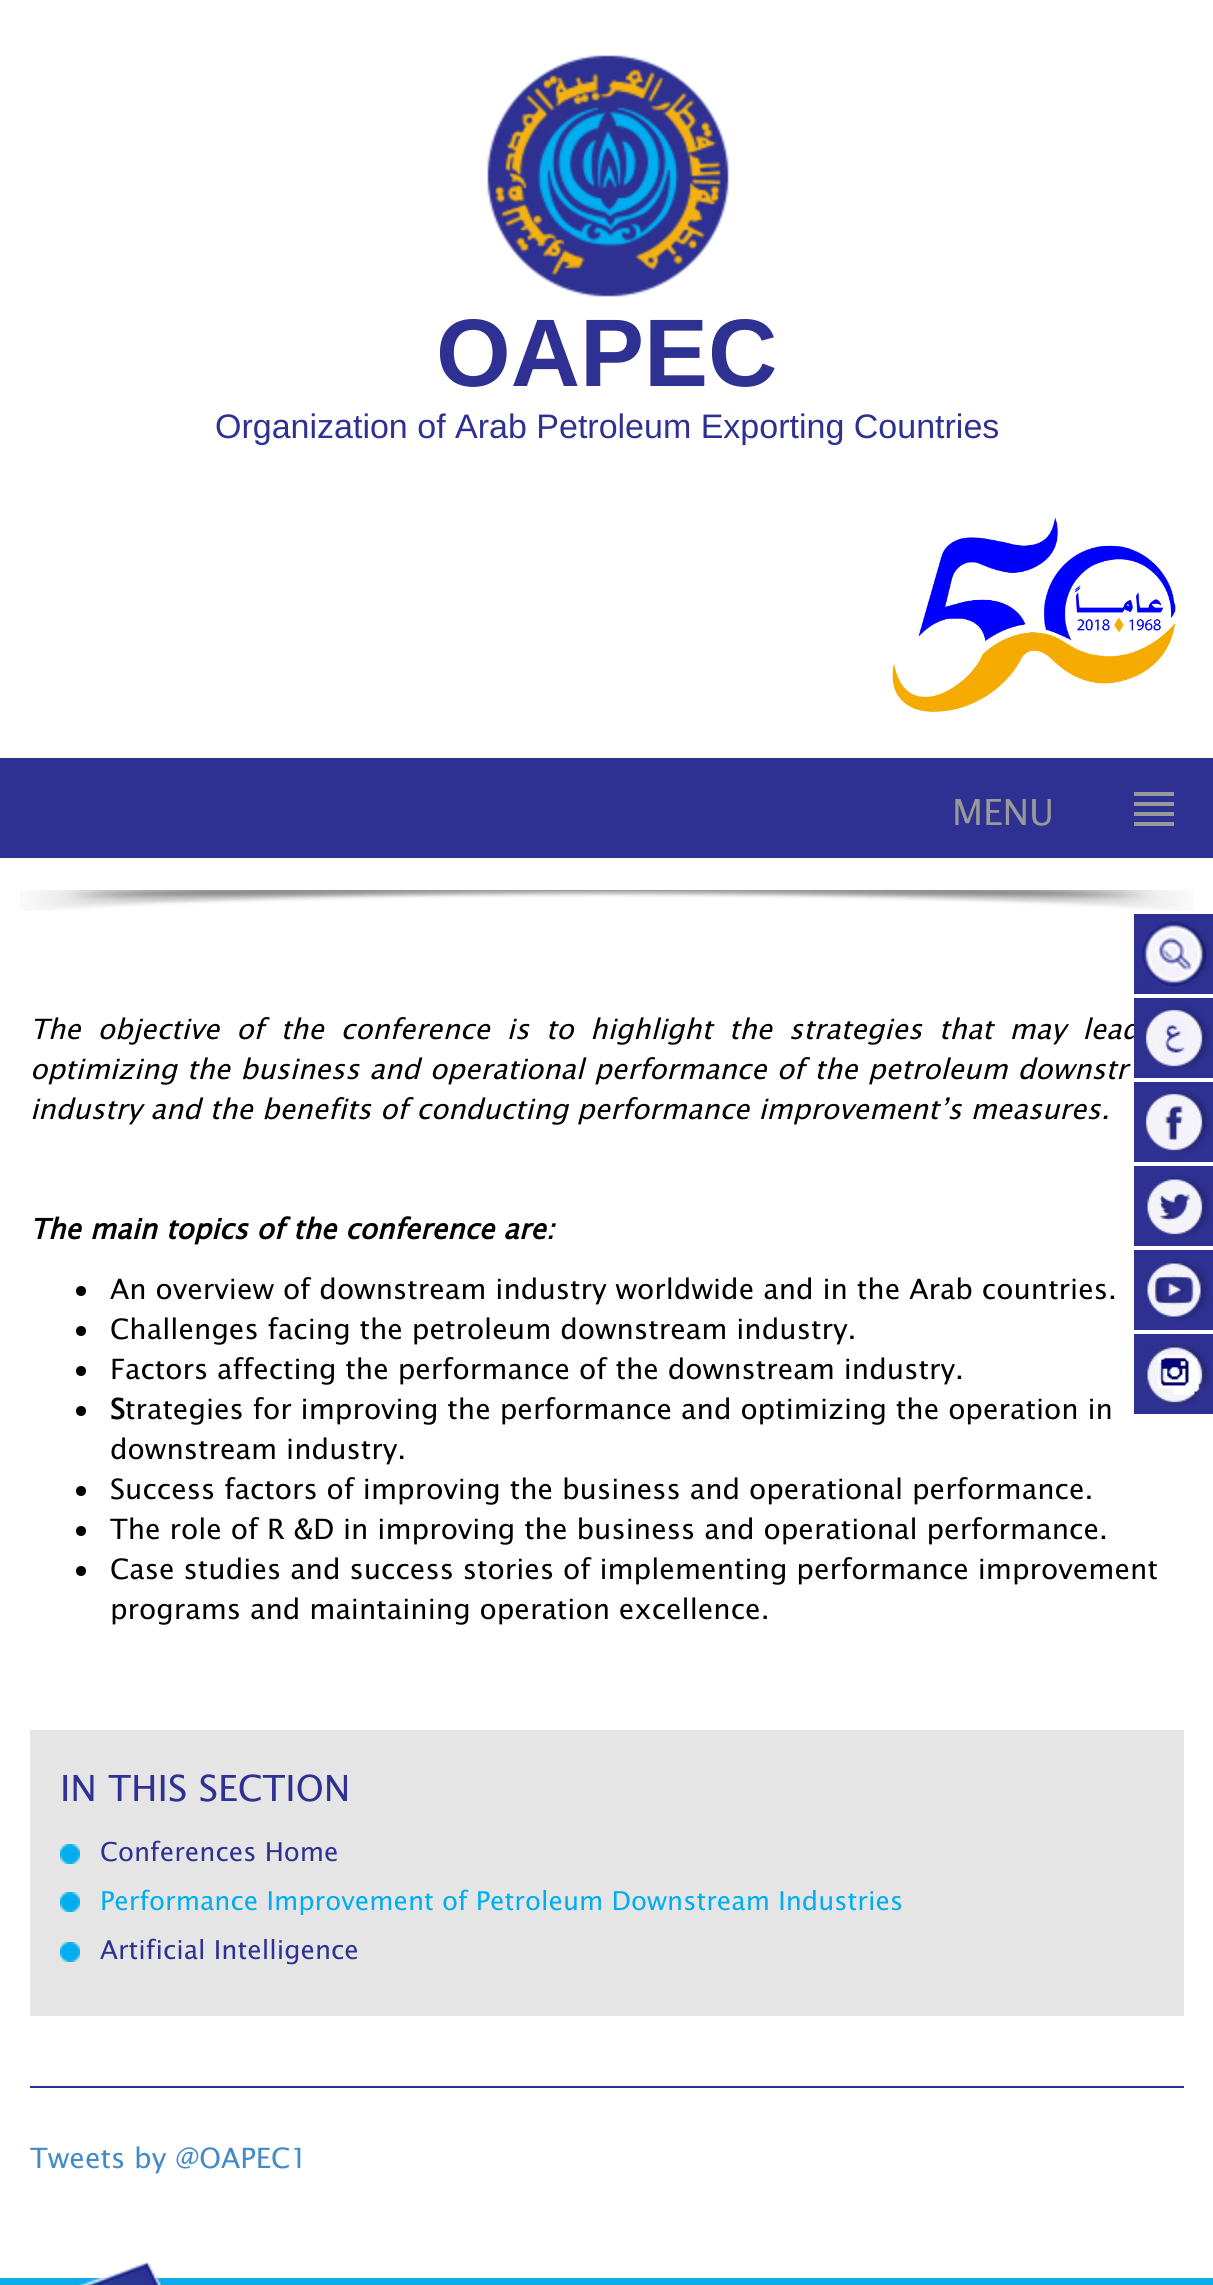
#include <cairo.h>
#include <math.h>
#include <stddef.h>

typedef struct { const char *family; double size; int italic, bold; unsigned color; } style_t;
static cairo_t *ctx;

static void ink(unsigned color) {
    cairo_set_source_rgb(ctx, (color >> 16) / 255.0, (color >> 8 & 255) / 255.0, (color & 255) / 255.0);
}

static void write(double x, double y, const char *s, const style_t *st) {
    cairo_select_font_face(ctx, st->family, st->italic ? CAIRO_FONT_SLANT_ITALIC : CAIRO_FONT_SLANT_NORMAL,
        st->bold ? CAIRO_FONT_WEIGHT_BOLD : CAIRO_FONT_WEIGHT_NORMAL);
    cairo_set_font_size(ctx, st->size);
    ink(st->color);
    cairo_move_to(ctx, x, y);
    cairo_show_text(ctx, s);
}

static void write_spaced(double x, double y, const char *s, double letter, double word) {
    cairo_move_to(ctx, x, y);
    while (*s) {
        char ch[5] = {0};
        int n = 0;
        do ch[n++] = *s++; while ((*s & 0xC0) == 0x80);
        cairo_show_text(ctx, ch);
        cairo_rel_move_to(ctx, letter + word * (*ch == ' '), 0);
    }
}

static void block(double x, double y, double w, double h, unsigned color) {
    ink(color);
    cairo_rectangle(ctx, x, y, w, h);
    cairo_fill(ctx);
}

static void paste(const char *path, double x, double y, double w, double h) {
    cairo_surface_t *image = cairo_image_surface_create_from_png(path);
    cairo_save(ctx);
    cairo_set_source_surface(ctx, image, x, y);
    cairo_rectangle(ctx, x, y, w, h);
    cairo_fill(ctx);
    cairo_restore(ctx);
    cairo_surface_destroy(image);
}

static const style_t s1 = {"Liberation Sans", 96, 0, 1, 0x2e3192};
static const style_t s2 = {"Liberation Sans", 34, 0, 0, 0x2e3192};
static const style_t s3 = {"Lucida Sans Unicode", 36, 0, 0, 0x999999};
static const style_t s4 = {"Lucida Sans Unicode", 28, 1, 0, 0x000000};
static const style_t s5 = {"Lucida Sans Unicode", 28, 1, 1, 0x000000};
static const style_t s6 = {"Lucida Sans Unicode", 28, 0, 0, 0x000000};
static const style_t s7 = {"Lucida Sans Unicode", 28, 0, 1, 0x000000};
static const style_t s8 = {"Lucida Sans Unicode", 36, 0, 0, 0x2e3192};
static const style_t s9 = {"Lucida Sans Unicode", 26, 0, 0, 0x2e3192};
static const style_t s10 = {"Lucida Sans Unicode", 26, 0, 0, 0x00aeef};
static const style_t s11 = {"Lucida Sans Unicode", 28, 0, 0, 0x428bca};

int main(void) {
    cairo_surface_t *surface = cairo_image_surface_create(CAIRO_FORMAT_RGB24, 1213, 2285);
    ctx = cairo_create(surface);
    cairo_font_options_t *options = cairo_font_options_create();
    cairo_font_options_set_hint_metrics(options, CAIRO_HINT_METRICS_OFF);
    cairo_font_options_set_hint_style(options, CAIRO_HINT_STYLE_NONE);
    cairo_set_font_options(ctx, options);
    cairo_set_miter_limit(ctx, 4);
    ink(0xffffff);
    cairo_paint(ctx);
    paste("pic1.png", 487, 55, 242, 242);
    write(436, 386, "OAPEC", &s1);
    write(215, 438, "Organization of Arab Petroleum Exporting Countries", &s2);
    paste("pic2.png", 892, 517, 284, 195);
    block(0, 758, 1213, 100, 0x2e3192);
    write(952, 825, "MENU", &s3);
    block(1134, 792, 40, 4, 0x999999);
    block(1134, 802, 40, 4, 0x999999);
    block(1134, 812, 40, 4, 0x999999);
    block(1134, 822, 40, 4, 0x999999);
    paste("pic3.png", 20, 890, 1174, 21);
    cairo_select_font_face(ctx, "Lucida Sans Unicode", CAIRO_FONT_SLANT_ITALIC, CAIRO_FONT_WEIGHT_NORMAL);
    cairo_set_font_size(ctx, 28);
    ink(0x000000);
    write_spaced(30, 1039, "The objective of the conference is to highlight the strategies that may lead", 0, 7.9);
    write_spaced(30, 1079, "optimizing the business and operational performance of the petroleum downstr", 0, 1.25);
    write(30, 1119, "industry and the benefits of conducting performance improvement’s measures.", &s4);
    write(30, 1239, "The main topics of the conference are:", &s5);
    cairo_new_path(ctx);
    cairo_arc(ctx, 81, 1291, 5, 0, 2 * M_PI);
    cairo_fill(ctx);
    write(110, 1299, "An overview of downstream industry worldwide and in the Arab countries.", &s6);
    cairo_new_path(ctx);
    cairo_arc(ctx, 81, 1331, 5, 0, 2 * M_PI);
    cairo_fill(ctx);
    write(110, 1339, "Challenges facing the petroleum downstream industry.", &s6);
    cairo_new_path(ctx);
    cairo_arc(ctx, 81, 1371, 5, 0, 2 * M_PI);
    cairo_fill(ctx);
    write(110, 1379, "Factors affecting the performance of the downstream industry.", &s6);
    cairo_new_path(ctx);
    cairo_arc(ctx, 81, 1411, 5, 0, 2 * M_PI);
    cairo_fill(ctx);
    write(110, 1419, "S", &s7);
    write(125, 1419, "trategies for improving the performance and optimizing the operation in", &s6);
    write(110, 1459, "downstream industry.", &s6);
    cairo_new_path(ctx);
    cairo_arc(ctx, 81, 1491, 5, 0, 2 * M_PI);
    cairo_fill(ctx);
    write(110, 1499, "Success factors of improving the business and operational performance.", &s6);
    cairo_new_path(ctx);
    cairo_arc(ctx, 81, 1531, 5, 0, 2 * M_PI);
    cairo_fill(ctx);
    write(110, 1539, "The role of R &D in improving the business and operational performance.", &s6);
    cairo_new_path(ctx);
    cairo_arc(ctx, 81, 1571, 5, 0, 2 * M_PI);
    cairo_fill(ctx);
    write(110, 1579, "Case studies and success stories of implementing performance improvement", &s6);
    write(110, 1619, "programs and maintaining operation excellence.", &s6);
    paste("pic4.png", 1134, 914, 79, 80);
    paste("pic5.png", 1134, 998, 79, 80);
    paste("pic6.png", 1134, 1082, 79, 80);
    paste("pic7.png", 1134, 1166, 79, 80);
    paste("pic8.png", 1134, 1250, 79, 80);
    paste("pic9.png", 1134, 1334, 79, 80);
    block(30, 1730, 1154, 286, 0xe6e5e6);
    write(60, 1801, "IN THIS SECTION", &s8);
    paste("pic10.png", 60, 1844, 20, 20);
    write(100, 1861, "Conferences Home", &s9);
    paste("pic10.png", 60, 1892, 20, 20);
    write(100, 1910, "Performance Improvement of Petroleum Downstream Industries", &s10);
    paste("pic10.png", 60, 1942, 20, 20);
    write(100, 1959, "Artificial Intelligence", &s9);
    block(30, 2086, 1154, 2, 0x2e3192);
    write(30, 2168, "Tweets by @OAPEC1", &s11);
    block(0, 2278, 1213, 7, 0x11abe9);
    paste("pic11.png", 79, 2261, 84, 24);
    cairo_surface_write_to_png(surface, "screenshot.png");
    cairo_font_options_destroy(options);
    cairo_destroy(ctx);
    cairo_surface_destroy(surface);
    return 0;
}
